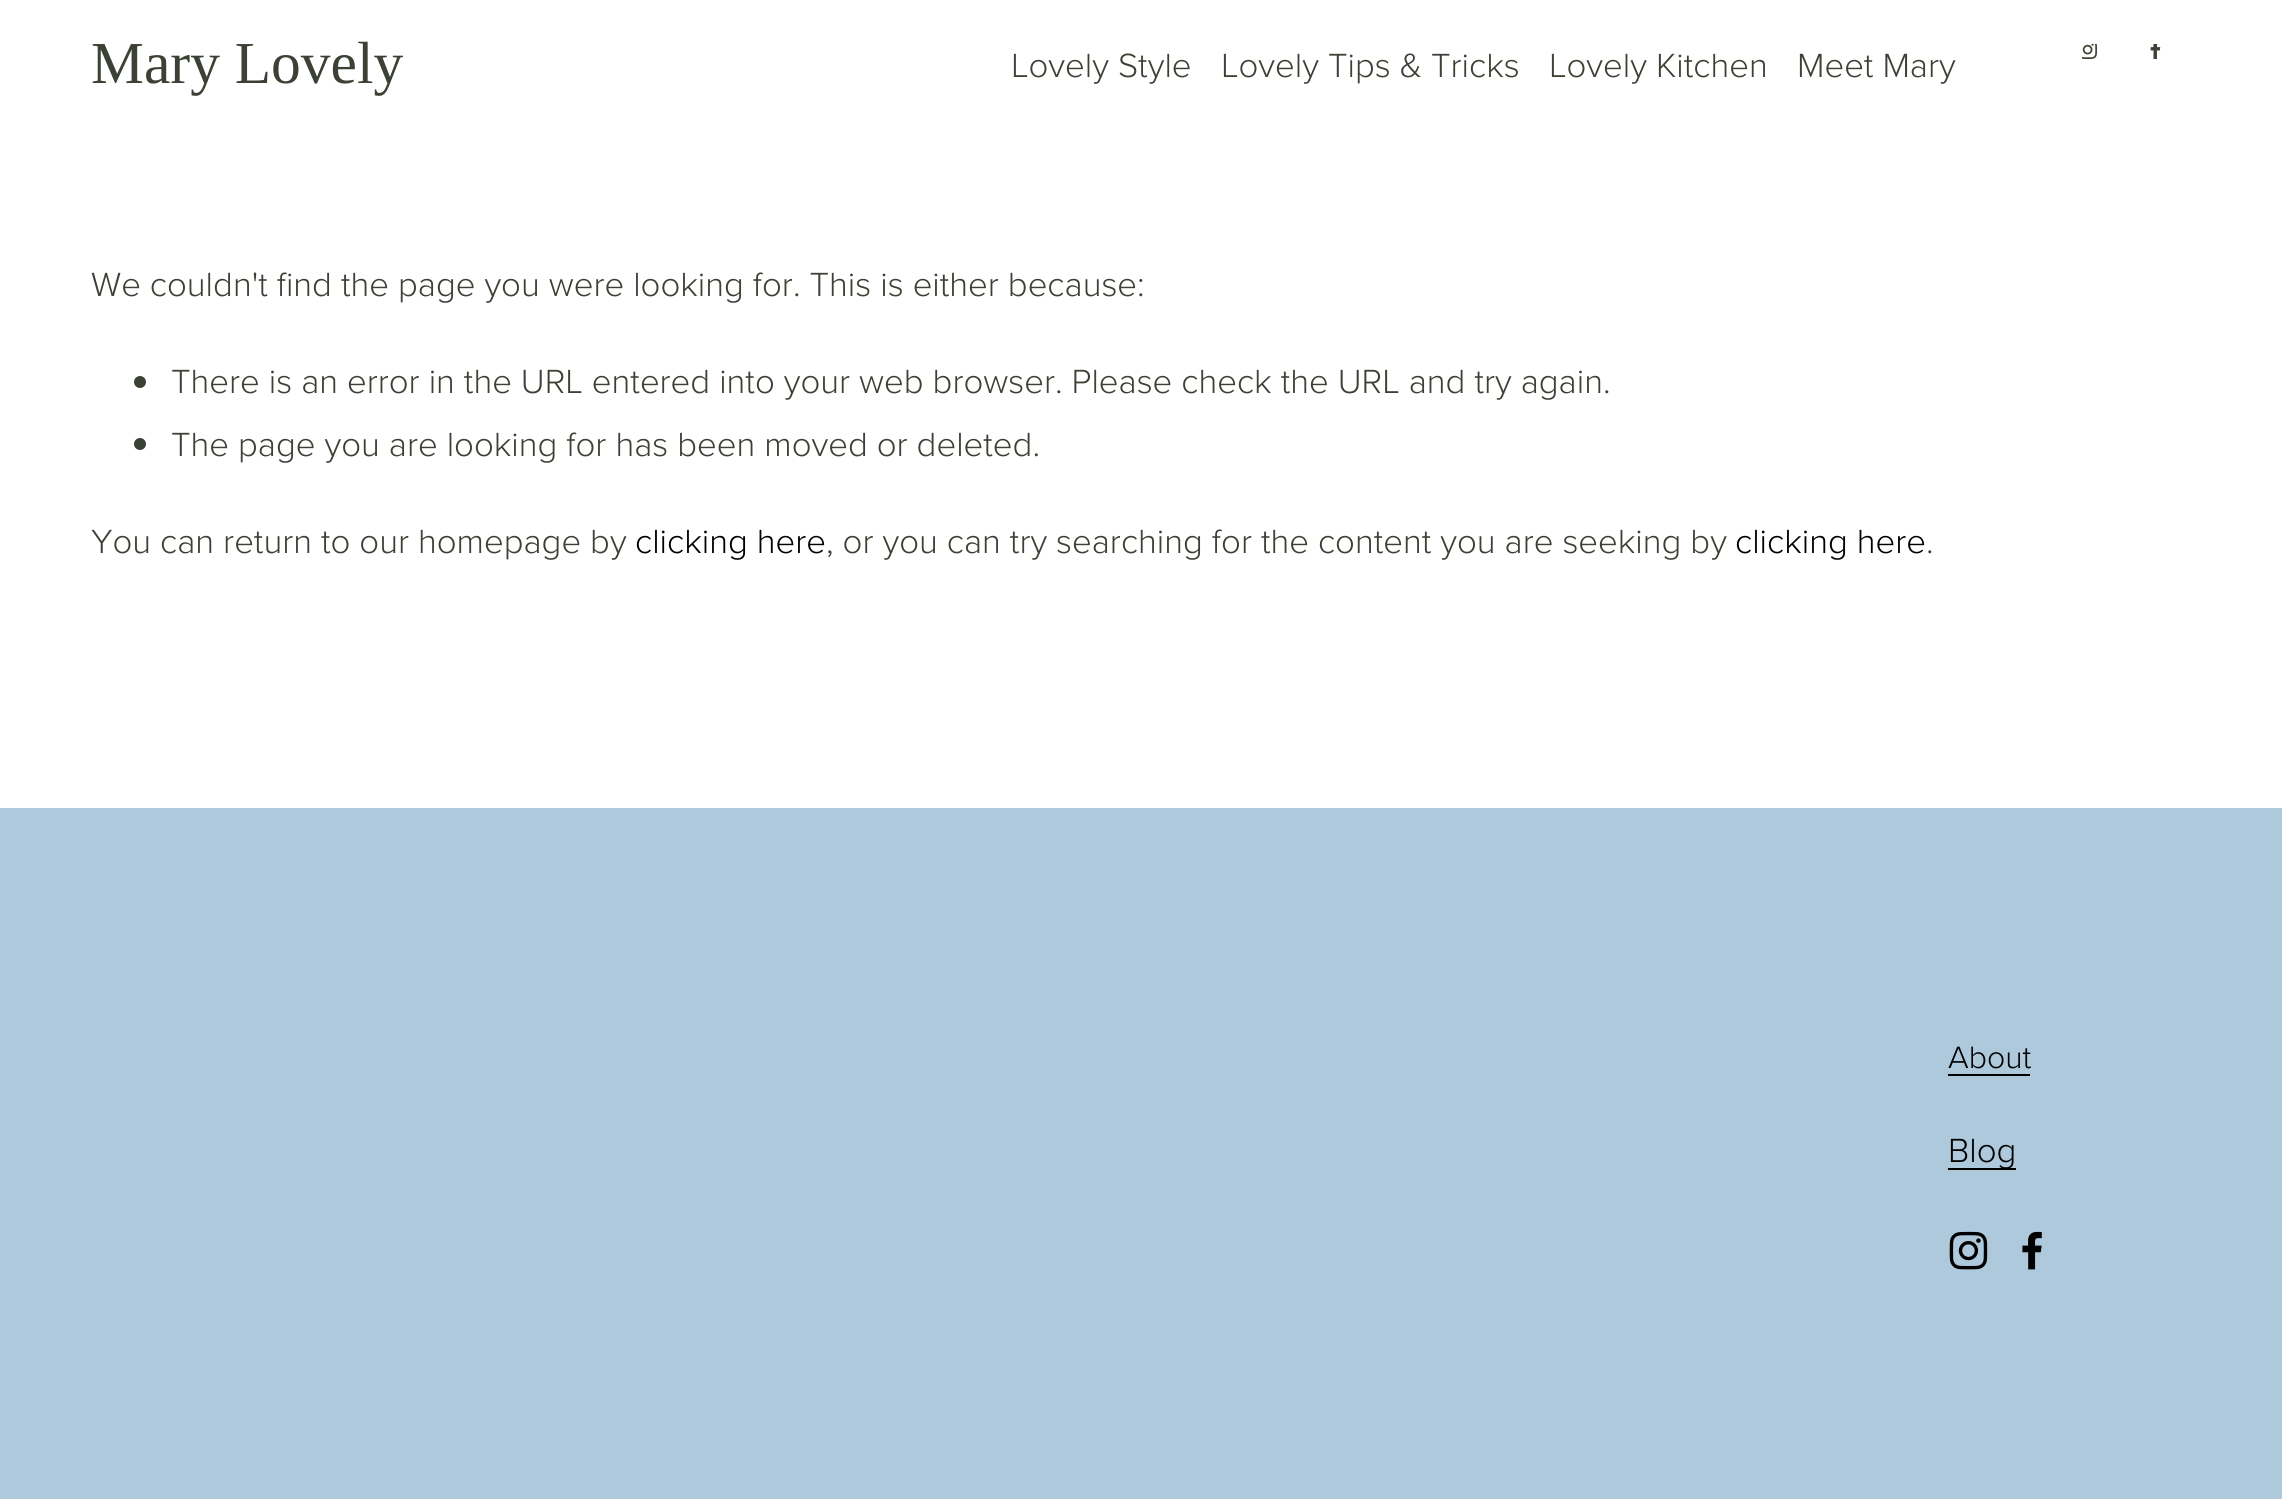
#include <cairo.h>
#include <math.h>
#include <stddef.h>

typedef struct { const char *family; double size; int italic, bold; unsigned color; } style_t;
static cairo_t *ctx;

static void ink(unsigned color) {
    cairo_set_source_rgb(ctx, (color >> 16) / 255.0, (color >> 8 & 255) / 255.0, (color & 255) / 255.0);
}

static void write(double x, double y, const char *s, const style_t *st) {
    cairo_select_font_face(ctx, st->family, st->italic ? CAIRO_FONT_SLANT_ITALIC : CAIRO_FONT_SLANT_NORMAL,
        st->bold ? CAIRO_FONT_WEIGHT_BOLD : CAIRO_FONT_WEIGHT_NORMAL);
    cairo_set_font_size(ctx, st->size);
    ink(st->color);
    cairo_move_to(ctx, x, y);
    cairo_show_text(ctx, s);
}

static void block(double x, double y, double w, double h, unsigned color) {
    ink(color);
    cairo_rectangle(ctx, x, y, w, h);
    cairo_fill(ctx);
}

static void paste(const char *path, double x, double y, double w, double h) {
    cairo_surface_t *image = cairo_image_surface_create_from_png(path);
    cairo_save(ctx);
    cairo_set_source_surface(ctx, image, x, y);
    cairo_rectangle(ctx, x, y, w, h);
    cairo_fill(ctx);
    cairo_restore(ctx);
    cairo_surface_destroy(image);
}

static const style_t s1 = {"Liberation Serif", 59.5, 0, 0, 0x3b4134};
static const style_t s2 = {"Proxima Nova Light", 34.75, 0, 0, 0x3b4134};
static const style_t s3 = {"Proxima Nova Light", 34.75, 0, 0, 0x000000};
static const style_t s4 = {"Proxima Nova Light", 32, 0, 0, 0x000000};

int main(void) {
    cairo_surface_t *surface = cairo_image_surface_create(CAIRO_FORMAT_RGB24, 2282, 1499);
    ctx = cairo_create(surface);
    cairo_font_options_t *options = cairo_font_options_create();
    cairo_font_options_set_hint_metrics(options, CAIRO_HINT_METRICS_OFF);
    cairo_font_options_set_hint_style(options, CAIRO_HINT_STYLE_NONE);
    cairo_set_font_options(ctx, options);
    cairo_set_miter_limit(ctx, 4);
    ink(0xffffff);
    cairo_paint(ctx);
    write(91, 83, "Mary Lovely", &s1);
    write(1011, 77, "Lovely Style", &s2);
    write(1221, 77, "Lovely Tips & Tricks", &s2);
    write(1549, 77, "Lovely Kitchen", &s2);
    write(1797, 77, "Meet Mary", &s2);
    paste("pic1.png", 2082, 44, 15, 15);
    paste("pic2.png", 2150, 44, 11, 15);
    write(91, 296, "We couldn't find the page you were looking for. This is either because:", &s2);
    cairo_new_path(ctx);
    cairo_arc(ctx, 140, 382, 6, 0, 2 * M_PI);
    cairo_fill(ctx);
    write(171, 393, "There is an error in the URL entered into your web browser. Please check the URL and try again.", &s2);
    cairo_new_path(ctx);
    cairo_arc(ctx, 140, 444, 6, 0, 2 * M_PI);
    cairo_fill(ctx);
    write(171, 456, "The page you are looking for has been moved or deleted.", &s2);
    write(91, 553, "You can return to our homepage by", &s2);
    write(635, 553, "clicking here", &s3);
    write(826, 553, ", or you can try searching for the content you are seeking by", &s2);
    write(1735, 553, "clicking here", &s3);
    write(1926, 553, ".", &s2);
    block(0, 808, 2282, 691, 0xaec9db);
    write(1948, 1068, "About", &s4);
    block(1948, 1074, 82, 2, 0x000000);
    block(1948, 1168, 68, 2, 0x000000);
    write(1948, 1162, "Blog", &s3);
    paste("pic3.png", 1949, 1231, 39, 39);
    paste("pic4.png", 2022, 1231, 20, 39);
    cairo_surface_write_to_png(surface, "screenshot.png");
    cairo_font_options_destroy(options);
    cairo_destroy(ctx);
    cairo_surface_destroy(surface);
    return 0;
}
